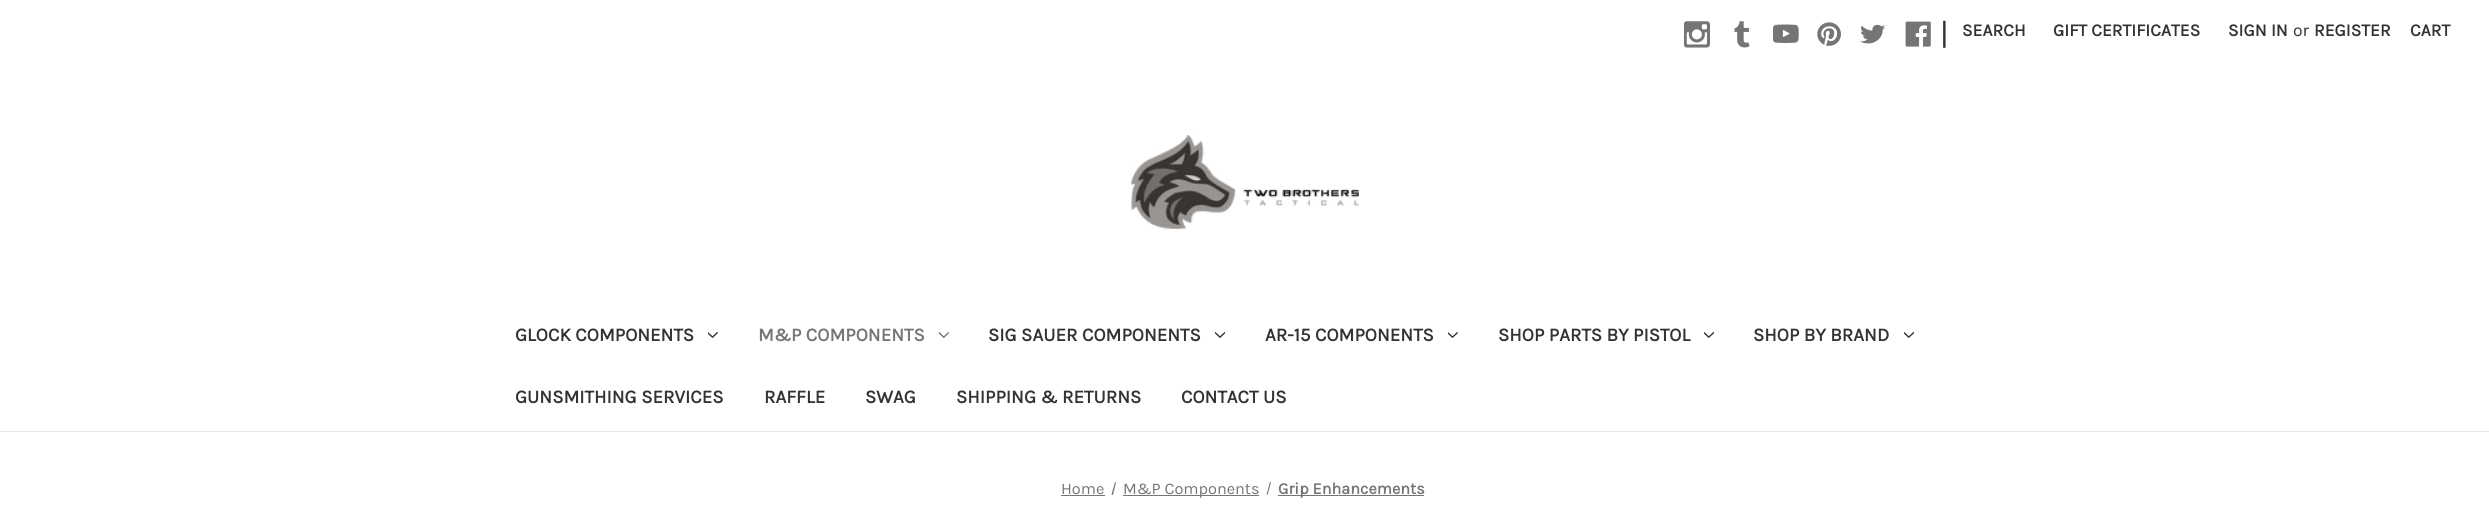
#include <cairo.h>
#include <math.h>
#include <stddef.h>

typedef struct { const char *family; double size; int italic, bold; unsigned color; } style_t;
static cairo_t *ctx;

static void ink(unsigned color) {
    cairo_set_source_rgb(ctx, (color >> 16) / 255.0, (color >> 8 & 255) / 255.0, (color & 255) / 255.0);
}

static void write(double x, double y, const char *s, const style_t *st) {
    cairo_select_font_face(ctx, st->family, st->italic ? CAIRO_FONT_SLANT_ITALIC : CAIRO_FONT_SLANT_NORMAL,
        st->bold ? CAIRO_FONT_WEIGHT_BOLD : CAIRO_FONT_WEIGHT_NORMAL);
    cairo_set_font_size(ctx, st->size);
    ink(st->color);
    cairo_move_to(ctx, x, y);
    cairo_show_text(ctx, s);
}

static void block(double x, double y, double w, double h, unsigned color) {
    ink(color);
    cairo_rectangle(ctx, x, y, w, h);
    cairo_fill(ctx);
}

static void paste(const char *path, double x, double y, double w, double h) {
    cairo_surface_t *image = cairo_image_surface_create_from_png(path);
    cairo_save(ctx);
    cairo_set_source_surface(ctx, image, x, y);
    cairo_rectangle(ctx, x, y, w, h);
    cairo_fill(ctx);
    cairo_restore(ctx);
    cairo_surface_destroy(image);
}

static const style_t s1 = {"Karla", 31, 0, 0, 0x333333};
static const style_t s2 = {"Karla", 17.5, 0, 1, 0x333333};
static const style_t s3 = {"Karla", 17.5, 0, 0, 0x333333};
static const style_t s4 = {"Karla", 18.75, 0, 1, 0x333333};
static const style_t s5 = {"Karla", 18.75, 0, 1, 0x757575};
static const style_t s6 = {"Karla", 16.25, 0, 0, 0x757575};
static const style_t s7 = {"Karla", 16.25, 0, 1, 0x757575};

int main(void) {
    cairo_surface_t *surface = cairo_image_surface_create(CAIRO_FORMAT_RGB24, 2489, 530);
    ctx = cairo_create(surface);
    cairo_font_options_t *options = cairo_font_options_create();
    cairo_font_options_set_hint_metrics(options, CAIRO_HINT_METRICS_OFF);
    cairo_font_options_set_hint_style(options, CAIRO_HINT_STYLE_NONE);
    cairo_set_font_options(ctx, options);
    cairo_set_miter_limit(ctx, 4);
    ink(0xffffff);
    cairo_paint(ctx);
    block(0, 431, 2489, 1, 0xe5e5e5);
    paste("pic1.png", 1684, 21, 26, 27);
    paste("pic2.png", 1734, 21, 16, 27);
    paste("pic3.png", 1773, 24, 26, 19);
    paste("pic4.png", 1817, 22, 24, 24);
    paste("pic5.png", 1860, 24, 26, 20);
    paste("pic6.png", 1905, 21, 26, 26);
    write(1940, 44, "|", &s1);
    write(1962, 36, "SEARCH", &s2);
    write(2053, 36, "GIFT CERTIFICATES", &s2);
    write(2228, 36, "SIGN IN", &s2);
    write(2293, 36, "or", &s3);
    write(2314, 36, "REGISTER", &s2);
    write(2410, 36, "CART", &s2);
    paste("pic7.png", 1131, 135, 228, 94);
    write(515, 341, "GLOCK COMPONENTS", &s4);
    paste("pic8.png", 708, 332, 10, 6);
    write(758, 341, "M&P COMPONENTS", &s5);
    paste("pic9.png", 939, 332, 10, 6);
    write(988, 341, "SIG SAUER COMPONENTS", &s4);
    paste("pic10.png", 1215, 332, 10, 6);
    write(1265, 341, "AR-15 COMPONENTS", &s4);
    paste("pic8.png", 1448, 332, 10, 6);
    write(1498, 341, "SHOP PARTS BY PISTOL", &s4);
    paste("pic11.png", 1704, 332, 10, 6);
    write(1753, 341, "SHOP BY BRAND", &s4);
    paste("pic11.png", 1904, 332, 10, 6);
    write(515, 403, "GUNSMITHING SERVICES", &s4);
    write(764, 403, "RAFFLE", &s4);
    write(865, 403, "SWAG", &s4);
    write(956, 403, "SHIPPING & RETURNS", &s4);
    write(1181, 403, "CONTACT US", &s4);
    write(1061, 494, "Home", &s6);
    block(1061, 495, 44, 1, 0x757575);
    cairo_new_path(ctx);
    cairo_move_to(ctx, 1115, 482);
    cairo_line_to(ctx, 1116, 482.5);
    cairo_line_to(ctx, 1113, 495);
    cairo_line_to(ctx, 1111.5, 494.5);
    cairo_close_path(ctx);
    cairo_fill(ctx);
    block(1123, 495, 136, 1, 0x757575);
    write(1123, 494, "M&P Components", &s6);
    cairo_new_path(ctx);
    cairo_move_to(ctx, 1270, 482);
    cairo_line_to(ctx, 1271, 482.5);
    cairo_line_to(ctx, 1267.5, 495);
    cairo_line_to(ctx, 1266.5, 494.5);
    cairo_close_path(ctx);
    cairo_fill(ctx);
    block(1278, 495, 146, 1, 0x757575);
    write(1278, 494, "Grip Enhancements", &s7);
    cairo_surface_write_to_png(surface, "screenshot.png");
    cairo_font_options_destroy(options);
    cairo_destroy(ctx);
    cairo_surface_destroy(surface);
    return 0;
}
